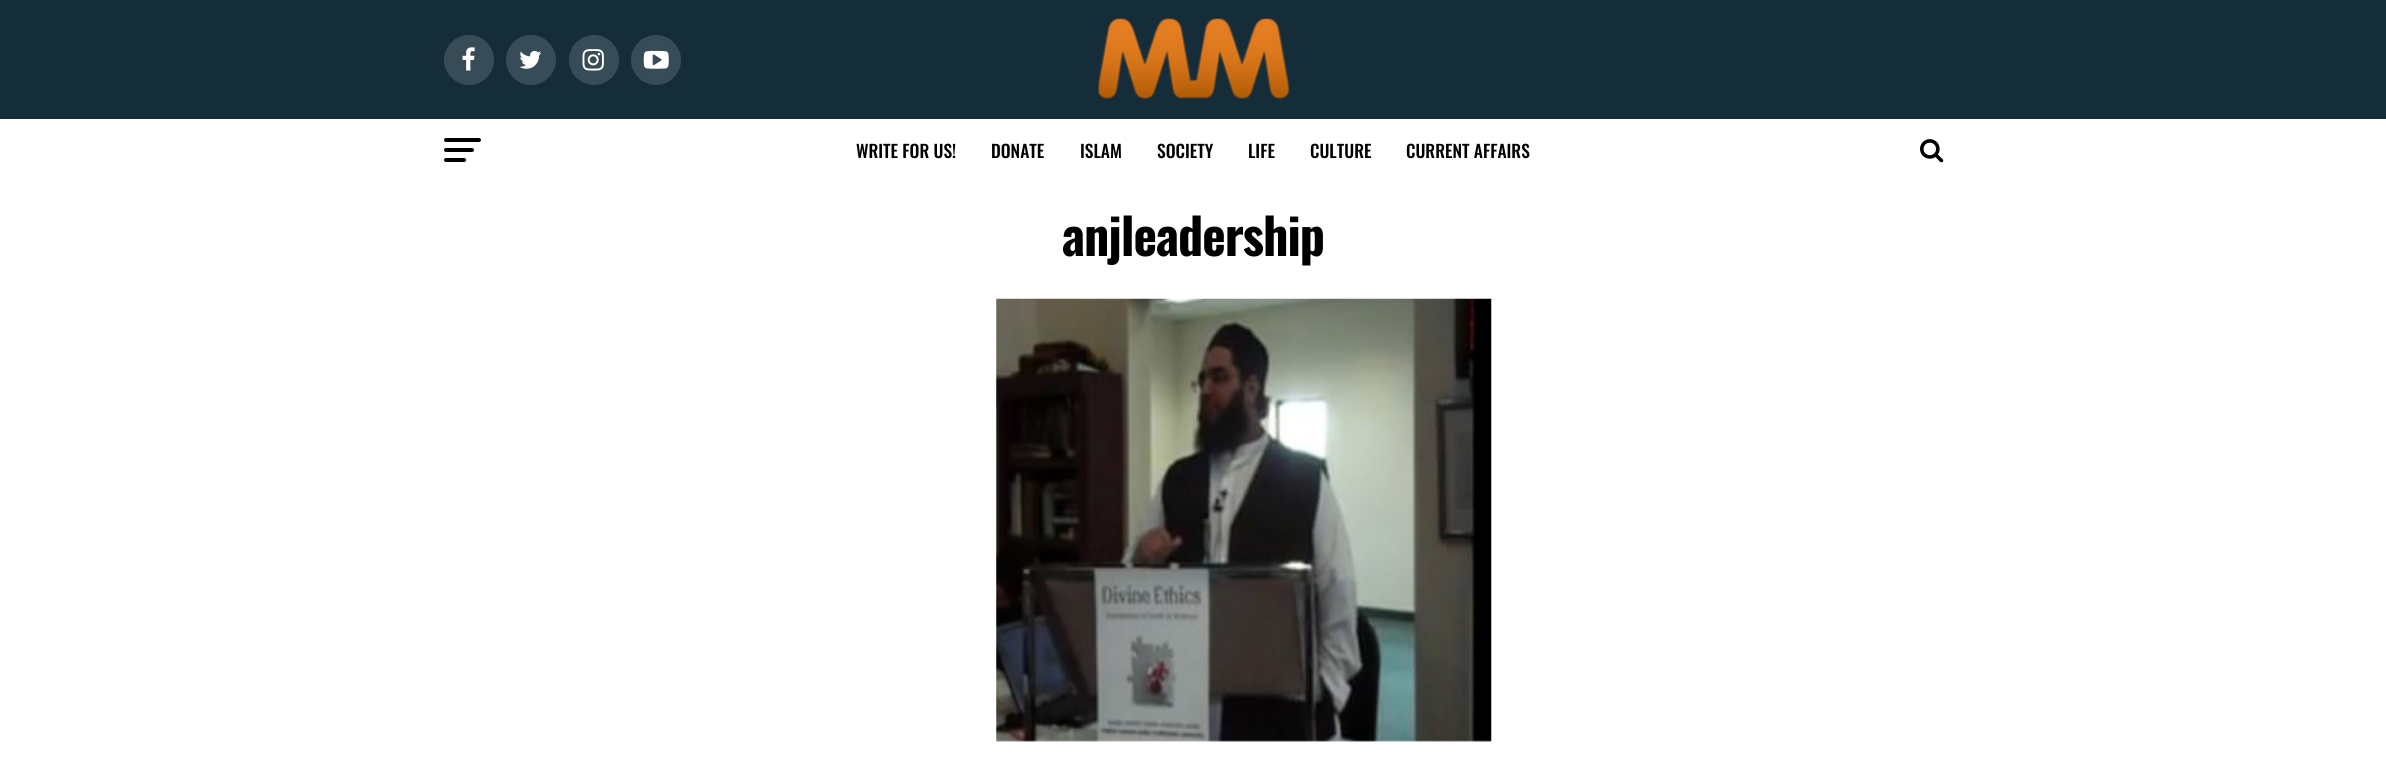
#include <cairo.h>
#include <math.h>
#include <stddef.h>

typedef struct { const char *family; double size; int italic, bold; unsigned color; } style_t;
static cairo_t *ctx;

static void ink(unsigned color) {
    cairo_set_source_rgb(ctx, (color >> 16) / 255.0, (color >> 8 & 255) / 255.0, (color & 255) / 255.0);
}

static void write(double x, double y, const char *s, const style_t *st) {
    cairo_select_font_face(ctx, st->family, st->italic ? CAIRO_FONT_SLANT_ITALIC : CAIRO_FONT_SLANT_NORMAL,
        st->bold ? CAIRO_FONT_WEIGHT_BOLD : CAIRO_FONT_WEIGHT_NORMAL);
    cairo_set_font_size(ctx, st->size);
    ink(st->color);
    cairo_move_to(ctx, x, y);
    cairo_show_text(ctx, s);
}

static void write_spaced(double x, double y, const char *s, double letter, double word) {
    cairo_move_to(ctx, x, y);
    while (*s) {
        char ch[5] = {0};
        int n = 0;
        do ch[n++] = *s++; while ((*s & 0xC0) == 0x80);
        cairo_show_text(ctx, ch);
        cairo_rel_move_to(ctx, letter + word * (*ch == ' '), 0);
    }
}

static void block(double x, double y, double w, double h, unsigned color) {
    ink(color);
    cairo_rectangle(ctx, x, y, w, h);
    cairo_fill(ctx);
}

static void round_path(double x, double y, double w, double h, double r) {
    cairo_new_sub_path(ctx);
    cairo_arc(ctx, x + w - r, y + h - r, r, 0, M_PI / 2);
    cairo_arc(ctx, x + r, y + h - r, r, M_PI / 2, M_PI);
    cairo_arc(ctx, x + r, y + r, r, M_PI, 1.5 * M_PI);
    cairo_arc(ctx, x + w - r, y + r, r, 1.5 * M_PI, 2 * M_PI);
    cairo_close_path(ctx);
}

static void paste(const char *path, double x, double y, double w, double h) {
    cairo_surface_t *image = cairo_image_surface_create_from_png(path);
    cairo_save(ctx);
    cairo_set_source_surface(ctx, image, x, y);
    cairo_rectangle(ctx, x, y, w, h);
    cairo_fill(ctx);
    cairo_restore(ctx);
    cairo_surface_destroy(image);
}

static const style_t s1 = {"Oswald Medium", 17.5, 0, 0, 0x000000};

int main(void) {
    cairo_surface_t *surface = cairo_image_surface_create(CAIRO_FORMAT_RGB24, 2386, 763);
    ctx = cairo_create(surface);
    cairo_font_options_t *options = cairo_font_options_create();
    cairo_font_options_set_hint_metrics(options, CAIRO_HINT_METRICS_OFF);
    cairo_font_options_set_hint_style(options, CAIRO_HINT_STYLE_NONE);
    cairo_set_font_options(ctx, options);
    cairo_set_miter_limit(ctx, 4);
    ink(0xffffff);
    cairo_paint(ctx);
    block(0, 0, 2386, 119, 0x152c39);
    ink(0x384c57);
    cairo_arc(ctx, 469, 60, 25, 0, 2 * M_PI);
    cairo_fill(ctx);
    paste("pic1.png", 462, 47, 13, 24);
    cairo_arc(ctx, 531, 60, 25, 0, 2 * M_PI);
    cairo_fill(ctx);
    paste("pic2.png", 519, 50, 23, 19);
    cairo_arc(ctx, 594, 60, 25, 0, 2 * M_PI);
    cairo_fill(ctx);
    paste("pic3.png", 582, 49, 22, 22);
    cairo_arc(ctx, 656, 60, 25, 0, 2 * M_PI);
    cairo_fill(ctx);
    paste("pic4.png", 643, 50, 26, 19);
    paste("pic5.png", 1098, 18, 192, 82);
    ink(0x000000);
    round_path(444, 138, 37, 4, 2);
    cairo_fill(ctx);
    round_path(444, 148, 30, 4, 2);
    cairo_fill(ctx);
    round_path(444, 158, 22, 4, 2);
    cairo_fill(ctx);
    write(856, 158, "WRITE FOR US!", &s1);
    write(991, 158, "DONATE", &s1);
    write(1080, 158, "ISLAM", &s1);
    write(1157, 158, "SOCIETY", &s1);
    write(1248, 158, "LIFE", &s1);
    write(1310, 158, "CULTURE", &s1);
    write(1406, 158, "CURRENT AFFAIRS", &s1);
    paste("pic6.png", 1920, 139, 24, 24);
    cairo_select_font_face(ctx, "Oswald", CAIRO_FONT_SLANT_NORMAL, CAIRO_FONT_WEIGHT_BOLD);
    cairo_set_font_size(ctx, 50);
    write_spaced(1062, 256, "anjleadership", -1, 0);
    paste("pic7.png", 996, 298, 496, 444);
    cairo_surface_write_to_png(surface, "screenshot.png");
    cairo_font_options_destroy(options);
    cairo_destroy(ctx);
    cairo_surface_destroy(surface);
    return 0;
}
